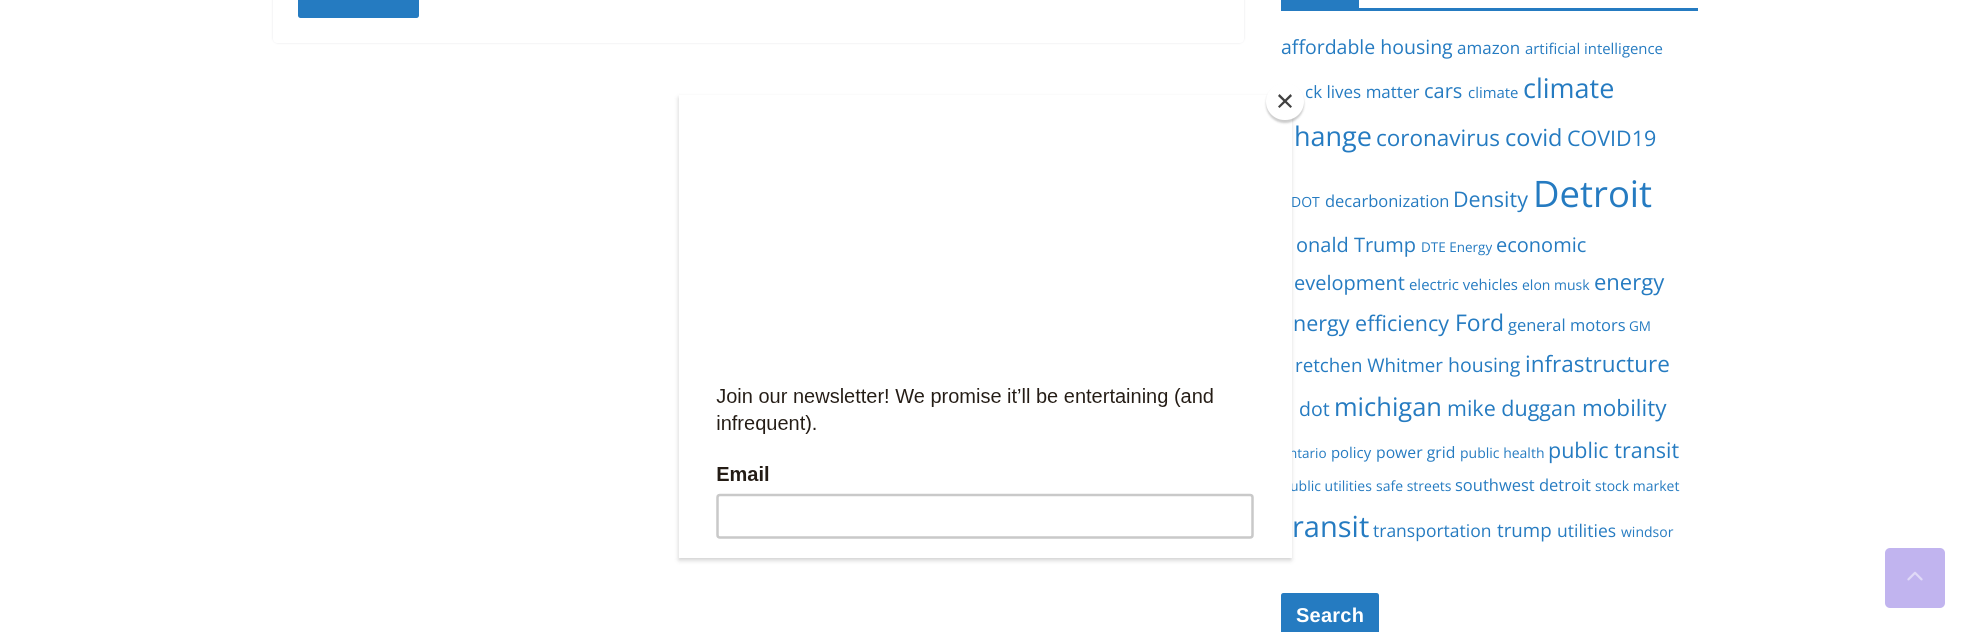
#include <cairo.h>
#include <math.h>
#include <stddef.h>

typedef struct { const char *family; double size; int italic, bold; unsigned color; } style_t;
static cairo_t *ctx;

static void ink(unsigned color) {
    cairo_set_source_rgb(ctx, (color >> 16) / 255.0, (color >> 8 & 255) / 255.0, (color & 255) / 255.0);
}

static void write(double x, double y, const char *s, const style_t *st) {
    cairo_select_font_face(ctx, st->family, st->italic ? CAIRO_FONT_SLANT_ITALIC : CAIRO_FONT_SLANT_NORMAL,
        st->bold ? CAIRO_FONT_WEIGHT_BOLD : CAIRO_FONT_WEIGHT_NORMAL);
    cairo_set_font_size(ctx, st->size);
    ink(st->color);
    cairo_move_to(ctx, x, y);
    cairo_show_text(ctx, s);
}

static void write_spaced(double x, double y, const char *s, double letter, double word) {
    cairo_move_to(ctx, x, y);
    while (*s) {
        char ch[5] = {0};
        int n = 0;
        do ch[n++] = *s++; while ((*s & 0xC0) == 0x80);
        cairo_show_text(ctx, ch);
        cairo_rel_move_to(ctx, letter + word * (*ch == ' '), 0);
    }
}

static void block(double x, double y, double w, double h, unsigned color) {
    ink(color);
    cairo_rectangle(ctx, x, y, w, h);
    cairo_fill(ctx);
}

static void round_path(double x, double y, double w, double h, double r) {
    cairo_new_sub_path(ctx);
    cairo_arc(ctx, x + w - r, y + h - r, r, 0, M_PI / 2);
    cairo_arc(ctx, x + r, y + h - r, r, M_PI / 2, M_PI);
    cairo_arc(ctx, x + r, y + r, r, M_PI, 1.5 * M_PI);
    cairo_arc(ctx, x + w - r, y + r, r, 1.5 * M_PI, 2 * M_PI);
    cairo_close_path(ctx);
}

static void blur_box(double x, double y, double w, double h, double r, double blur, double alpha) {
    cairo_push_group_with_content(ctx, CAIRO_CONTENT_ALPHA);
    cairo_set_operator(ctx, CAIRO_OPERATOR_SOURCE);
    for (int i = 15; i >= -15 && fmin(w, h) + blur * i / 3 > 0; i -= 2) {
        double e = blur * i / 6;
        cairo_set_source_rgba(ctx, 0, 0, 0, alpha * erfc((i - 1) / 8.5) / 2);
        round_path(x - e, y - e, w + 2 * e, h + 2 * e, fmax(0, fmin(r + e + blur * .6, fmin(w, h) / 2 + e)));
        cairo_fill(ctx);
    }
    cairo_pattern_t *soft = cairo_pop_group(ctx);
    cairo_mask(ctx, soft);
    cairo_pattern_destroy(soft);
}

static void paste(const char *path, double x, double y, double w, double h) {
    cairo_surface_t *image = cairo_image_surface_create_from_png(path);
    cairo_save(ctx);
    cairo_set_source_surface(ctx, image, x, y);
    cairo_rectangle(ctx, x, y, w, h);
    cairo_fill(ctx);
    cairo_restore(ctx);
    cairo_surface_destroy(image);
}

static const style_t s1 = {"Open Sans", 13.5, 0, 0, 0x257bc1};
static const style_t s2 = {"Open Sans", 14, 0, 0, 0x257bc1};
static const style_t s3 = {"Open Sans", 19.5, 0, 0, 0x257bc1};
static const style_t s4 = {"Open Sans", 17, 0, 0, 0x257bc1};
static const style_t s5 = {"Open Sans", 14.9, 0, 0, 0x257bc1};
static const style_t s6 = {"Open Sans", 20, 0, 0, 0x257bc1};
static const style_t s7 = {"Open Sans", 27, 0, 0, 0x257bc1};
static const style_t s8 = {"Open Sans", 22.5, 0, 0, 0x257bc1};
static const style_t s9 = {"Open Sans", 23.5, 0, 0, 0x257bc1};
static const style_t s10 = {"Open Sans", 21.5, 0, 0, 0x257bc1};
static const style_t s11 = {"Open Sans", 16.5, 0, 0, 0x257bc1};
static const style_t s12 = {"Open Sans", 36.5, 0, 0, 0x257bc1};
static const style_t s13 = {"Open Sans", 22, 0, 0, 0x257bc1};
static const style_t s14 = {"Open Sans", 23, 0, 0, 0x257bc1};
static const style_t s15 = {"Open Sans", 18.75, 0, 0, 0x257bc1};
static const style_t s16 = {"Open Sans", 25.5, 0, 0, 0x257bc1};
static const style_t s17 = {"Open Sans", 15.75, 0, 0, 0x257bc1};
static const style_t s18 = {"Open Sans", 29, 0, 0, 0x257bc1};
static const style_t s19 = {"Open Sans", 17.5, 0, 0, 0x257bc1};

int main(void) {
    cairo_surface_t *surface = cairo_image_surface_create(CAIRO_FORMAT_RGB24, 1970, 632);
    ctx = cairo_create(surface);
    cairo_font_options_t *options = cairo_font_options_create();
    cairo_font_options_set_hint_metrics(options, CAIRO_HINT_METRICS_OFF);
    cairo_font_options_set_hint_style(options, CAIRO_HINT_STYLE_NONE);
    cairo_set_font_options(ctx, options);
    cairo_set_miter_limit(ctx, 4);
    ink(0xffffff);
    cairo_paint(ctx);
    ink(0x000000);
    blur_box(679, 98, 612, 462, 0, 2.5, 0.2);
    write(1289, 458, "ntario", &s1);
    write(1290, 491, "ublic utilities", &s2);
    paste("pic1.png", 679, 95, 613, 463);
    ink(0x000000);
    blur_box(1266, 85, 38, 38, 19, 1, 0.2);
    ink(0xffffff);
    round_path(1266, 83, 38, 37, 18.5);
    cairo_fill(ctx);
    ink(0x414141);
    cairo_new_path(ctx);
    cairo_move_to(ctx, 1290.5, 94);
    cairo_line_to(ctx, 1292, 96);
    cairo_line_to(ctx, 1279.5, 108);
    cairo_line_to(ctx, 1278, 106.5);
    cairo_close_path(ctx);
    cairo_fill(ctx);
    cairo_new_path(ctx);
    cairo_move_to(ctx, 1278, 96);
    cairo_line_to(ctx, 1279.5, 94);
    cairo_line_to(ctx, 1292, 106.5);
    cairo_line_to(ctx, 1290.5, 108);
    cairo_close_path(ctx);
    cairo_fill(ctx);
    cairo_save(ctx);
    cairo_set_fill_rule(ctx, CAIRO_FILL_RULE_EVEN_ODD);
    cairo_new_path(ctx);
    cairo_move_to(ctx, 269, 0);
    cairo_line_to(ctx, 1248, 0);
    cairo_line_to(ctx, 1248, 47);
    cairo_line_to(ctx, 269, 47);
    cairo_close_path(ctx);
    cairo_move_to(ctx, 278, -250);
    cairo_line_to(ctx, 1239, -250);
    cairo_curve_to(ctx, 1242, -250, 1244, -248, 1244, -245);
    cairo_line_to(ctx, 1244, 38);
    cairo_curve_to(ctx, 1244, 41, 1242, 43, 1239, 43);
    cairo_line_to(ctx, 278, 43);
    cairo_curve_to(ctx, 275, 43, 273, 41, 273, 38);
    cairo_line_to(ctx, 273, -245);
    cairo_curve_to(ctx, 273, -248, 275, -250, 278, -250);
    cairo_close_path(ctx);
    cairo_clip(ctx);
    ink(0xe4e4e7);
    blur_box(273, -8, 971, 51, 5, 1, 1);
    cairo_restore(ctx);
    ink(0x257bc1);
    round_path(298, -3, 121, 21, 2.5);
    cairo_fill(ctx);
    block(1281, 8, 417, 3, 0x257bc1);
    block(1281, 0, 78, 8, 0x257bc1);
    write(1281, 54, "affordable housing", &s3);
    write(1457, 54, "amazon", &s4);
    write(1525, 54, "artificial intelligence", &s5);
    write(1305, 98, "ck lives matter", &s4);
    write(1424, 98, "cars", &s6);
    write(1468, 98, "climate", &s5);
    write(1523, 98, "climate", &s7);
    write(1294, 146, "hange", &s7);
    write(1376, 146, "coronavirus", &s8);
    write(1505, 146, "covid", &s9);
    write(1567, 146, "COVID19", &s10);
    write(1291, 207, "DOT", &s2);
    write(1325, 207, "decarbonization", &s11);
    write(1453, 207, "Density", &s10);
    write(1533, 207, "Detroit", &s12);
    write(1296, 252, "onald Trump", &s6);
    write(1421, 252, "DTE Energy", &s1);
    write(1496, 252, "economic", &s6);
    write(1294, 290, "evelopment", &s6);
    write(1409, 290, "electric vehicles", &s5);
    write(1522, 290, "elon musk", &s2);
    write(1594, 290, "energy", &s13);
    write(1293, 331, "nergy efficiency", &s10);
    write(1455, 331, "Ford", &s14);
    write(1508, 331, "general motors", &s11);
    write(1629, 331, "GM", &s1);
    write(1295, 372, "retchen Whitmer", &s15);
    write(1448, 372, "housing", &s3);
    write(1525, 372, "infrastructure", &s8);
    write(1299, 416, "dot", &s3);
    write(1334, 416, "michigan", &s16);
    write(1447, 416, "mike duggan", &s10);
    write(1582, 416, "mobility", &s8);
    write(1331, 458, "policy", &s5);
    write(1376, 458, "power grid", &s17);
    write(1460, 458, "public health", &s2);
    write(1548, 458, "public transit", &s10);
    write(1376, 491, "safe streets", &s2);
    write(1455, 491, "southwest detroit", &s11);
    write(1595, 491, "stock market", &s2);
    write(1292, 537, "ransit", &s18);
    write(1373, 537, "transportation", &s19);
    write(1497, 537, "trump", &s15);
    write(1557, 537, "utilities", &s19);
    write(1621, 537, "windsor", &s2);
    cairo_new_path(ctx);
    cairo_move_to(ctx, 1283.5, 593);
    cairo_line_to(ctx, 1376.5, 593);
    cairo_curve_to(ctx, 1378, 593, 1379, 594, 1379, 595.5);
    cairo_line_to(ctx, 1379, 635);
    cairo_line_to(ctx, 1281, 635);
    cairo_line_to(ctx, 1281, 595.5);
    cairo_curve_to(ctx, 1281, 594, 1282, 593, 1283.5, 593);
    cairo_close_path(ctx);
    cairo_fill(ctx);
    cairo_select_font_face(ctx, "Liberation Sans", CAIRO_FONT_SLANT_NORMAL, CAIRO_FONT_WEIGHT_BOLD);
    cairo_set_font_size(ctx, 20);
    ink(0xffffff);
    write_spaced(1296, 622, "Search", 0.25, 0);
    ink(0xc1b4ef);
    round_path(1885, 548, 60, 60, 5);
    cairo_fill(ctx);
    paste("pic2.png", 1907, 571, 16, 10);
    cairo_surface_write_to_png(surface, "screenshot.png");
    cairo_font_options_destroy(options);
    cairo_destroy(ctx);
    cairo_surface_destroy(surface);
    return 0;
}
